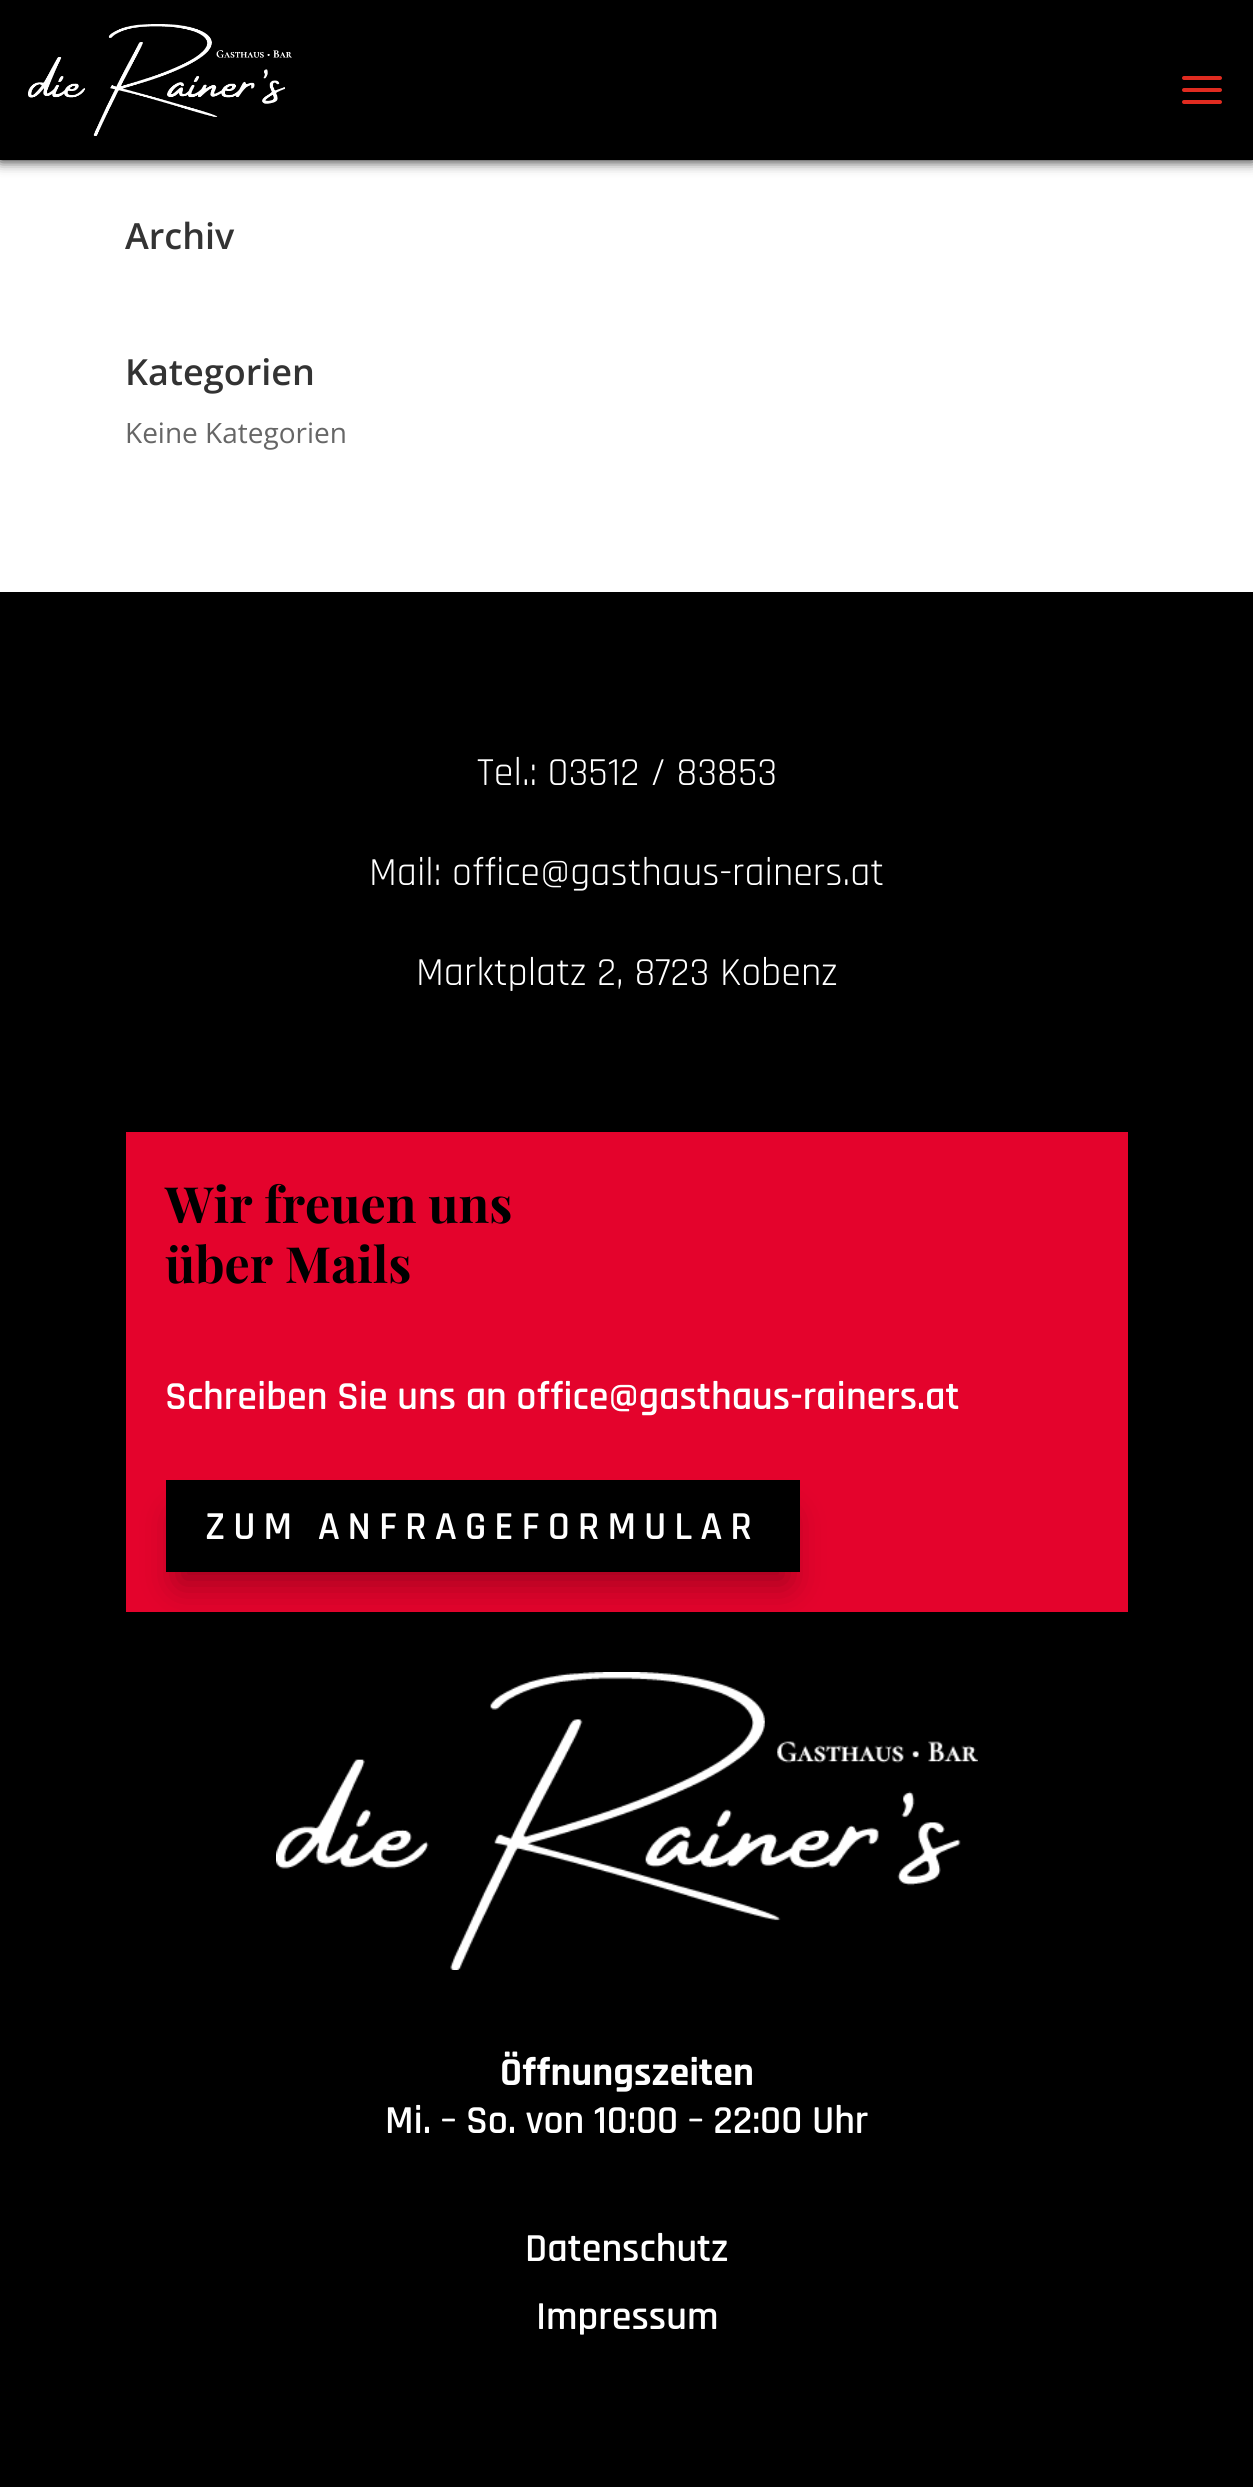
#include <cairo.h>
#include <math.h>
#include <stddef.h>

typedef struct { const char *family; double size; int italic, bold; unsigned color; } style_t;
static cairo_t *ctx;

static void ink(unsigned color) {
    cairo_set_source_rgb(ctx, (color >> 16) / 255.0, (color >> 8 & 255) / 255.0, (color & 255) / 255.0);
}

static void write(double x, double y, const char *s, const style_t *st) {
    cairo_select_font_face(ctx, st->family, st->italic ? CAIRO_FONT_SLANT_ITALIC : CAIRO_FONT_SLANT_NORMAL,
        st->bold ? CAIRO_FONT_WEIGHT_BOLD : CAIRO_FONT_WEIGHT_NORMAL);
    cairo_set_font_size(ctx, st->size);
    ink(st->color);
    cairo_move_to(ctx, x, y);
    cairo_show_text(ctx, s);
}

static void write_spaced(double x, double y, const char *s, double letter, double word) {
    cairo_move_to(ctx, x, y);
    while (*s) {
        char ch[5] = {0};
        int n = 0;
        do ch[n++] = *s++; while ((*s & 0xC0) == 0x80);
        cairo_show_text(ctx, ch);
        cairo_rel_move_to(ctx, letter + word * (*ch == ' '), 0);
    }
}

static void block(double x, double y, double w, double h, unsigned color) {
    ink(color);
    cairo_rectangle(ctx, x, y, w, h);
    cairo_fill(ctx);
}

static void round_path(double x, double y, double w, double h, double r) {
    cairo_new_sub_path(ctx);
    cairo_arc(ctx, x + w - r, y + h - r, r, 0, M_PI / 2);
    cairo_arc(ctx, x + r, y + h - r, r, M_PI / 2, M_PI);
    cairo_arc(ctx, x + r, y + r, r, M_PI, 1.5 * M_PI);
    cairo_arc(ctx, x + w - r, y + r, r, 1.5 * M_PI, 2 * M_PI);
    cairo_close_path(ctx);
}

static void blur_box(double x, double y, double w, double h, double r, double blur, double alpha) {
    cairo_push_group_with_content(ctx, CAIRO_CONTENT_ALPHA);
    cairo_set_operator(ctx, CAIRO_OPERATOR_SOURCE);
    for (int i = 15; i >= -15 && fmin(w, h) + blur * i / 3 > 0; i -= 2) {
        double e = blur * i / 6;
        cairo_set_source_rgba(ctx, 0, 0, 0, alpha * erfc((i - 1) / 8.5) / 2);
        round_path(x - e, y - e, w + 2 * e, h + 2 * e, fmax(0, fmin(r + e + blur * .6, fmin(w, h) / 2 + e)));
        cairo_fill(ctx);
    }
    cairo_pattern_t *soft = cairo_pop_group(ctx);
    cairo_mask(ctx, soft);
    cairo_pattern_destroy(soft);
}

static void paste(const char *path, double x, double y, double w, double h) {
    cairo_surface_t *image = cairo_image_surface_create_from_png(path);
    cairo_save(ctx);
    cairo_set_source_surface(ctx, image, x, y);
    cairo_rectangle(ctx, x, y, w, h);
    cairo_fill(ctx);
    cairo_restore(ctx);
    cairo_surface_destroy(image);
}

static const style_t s1 = {"Open Sans SemiBold", 36, 0, 0, 0x333333};
static const style_t s2 = {"Open Sans", 28, 0, 0, 0x666666};
static const style_t s3 = {"Rajdhani", 40, 0, 0, 0xffffff};
static const style_t s4 = {"Playfair Display", 50, 0, 1, 0x000000};
static const style_t s5 = {"Rajdhani SemiBold", 40, 0, 0, 0xffffff};
static const style_t s6 = {"Rajdhani", 40, 0, 1, 0xffffff};

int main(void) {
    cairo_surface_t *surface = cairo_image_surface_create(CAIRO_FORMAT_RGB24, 1253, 2487);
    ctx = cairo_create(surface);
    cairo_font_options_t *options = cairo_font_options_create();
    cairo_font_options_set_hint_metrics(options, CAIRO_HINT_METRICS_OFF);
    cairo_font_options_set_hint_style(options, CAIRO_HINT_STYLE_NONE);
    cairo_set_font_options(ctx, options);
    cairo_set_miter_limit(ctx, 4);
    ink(0x000000);
    cairo_paint(ctx);
    block(0, 160, 1253, 432, 0xffffff);
    ink(0x000000);
    blur_box(0, 0, 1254, 160, 0, 7, 1);
    paste("pic1.png", 28, 24, 264, 112);
    paste("pic2.png", 1182, 76, 40, 28);
    write(125, 249, "Archiv", &s1);
    write(125, 385, "Kategorien", &s1);
    write(125, 443, "Keine Kategorien", &s2);
    write(477, 785, "Tel.: 03512 / 83853", &s3);
    write(369, 885, "Mail: office@gasthaus-rainers.at", &s3);
    write(416, 985, "Marktplatz 2, 8723 Kobenz", &s3);
    block(126, 1132, 1002, 480, 0xe4032c);
    write(165, 1223, "Wir freuen uns", &s4);
    write(165, 1283, "über Mails", &s4);
    write(165, 1409, "Schreiben Sie uns an office@gasthaus-rainers.at", &s5);
    ink(0x000000);
    blur_box(178, 1516, 610, 68, 0, 18, 0.3);
    block(166, 1480, 634, 92, 0x000000);
    ink(0xffffff);
    write_spaced(205, 1539, "ZUM ANFRAGEFORMULAR", 8, 0);
    paste("pic3.png", 276, 1672, 702, 298);
    write(500, 2085, "Öffnungszeiten", &s6);
    write(385, 2133, "Mi. – So. von 10:00 – 22:00 Uhr", &s5);
    write(525, 2261, "Datenschutz", &s5);
    write(536, 2329, "Impressum", &s5);
    cairo_surface_write_to_png(surface, "screenshot.png");
    cairo_font_options_destroy(options);
    cairo_destroy(ctx);
    cairo_surface_destroy(surface);
    return 0;
}
